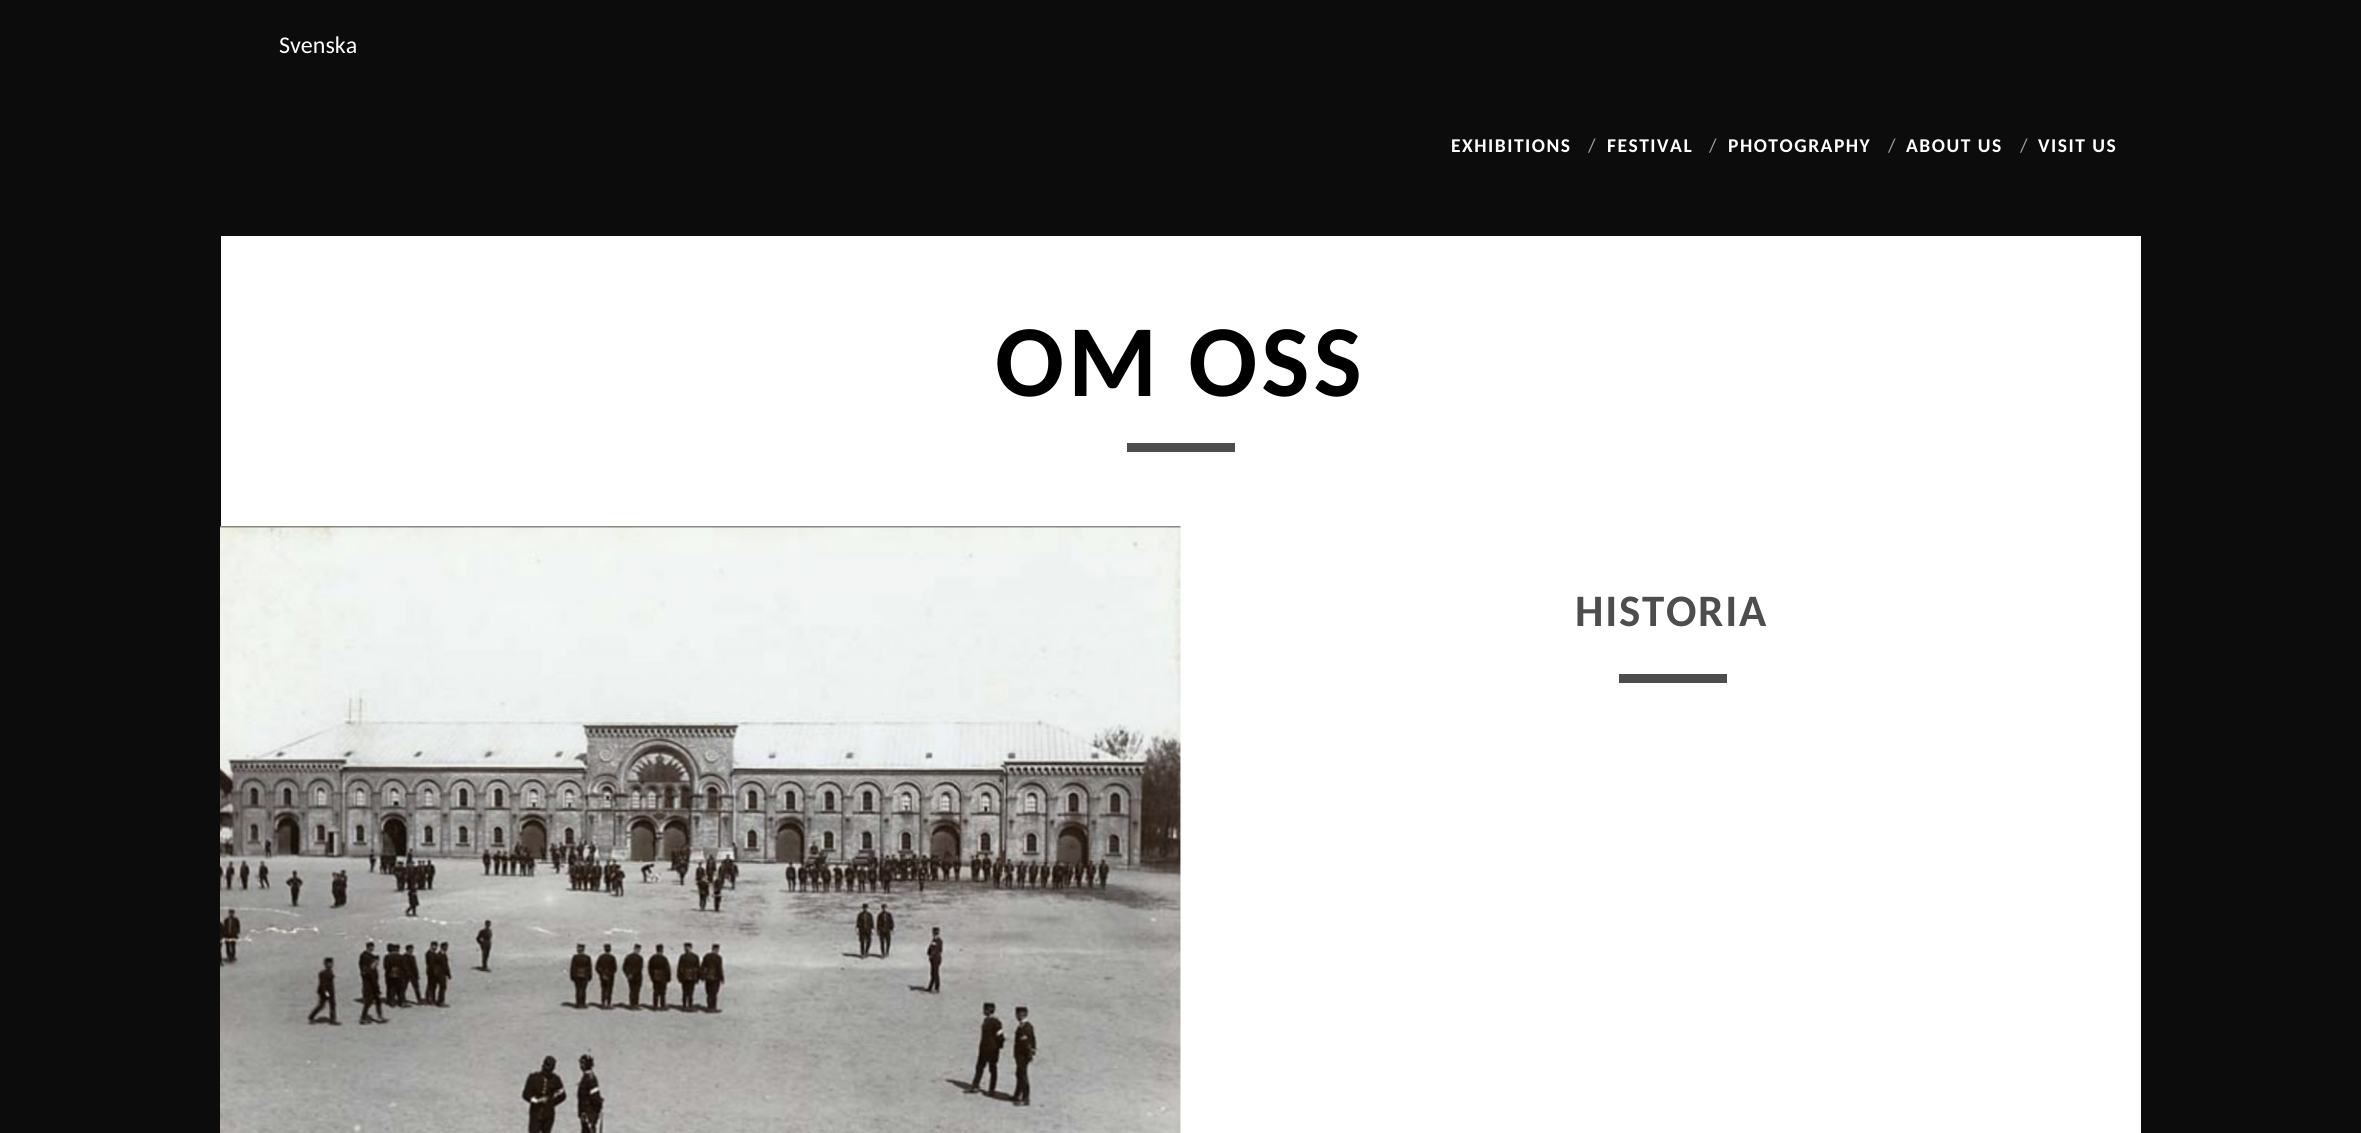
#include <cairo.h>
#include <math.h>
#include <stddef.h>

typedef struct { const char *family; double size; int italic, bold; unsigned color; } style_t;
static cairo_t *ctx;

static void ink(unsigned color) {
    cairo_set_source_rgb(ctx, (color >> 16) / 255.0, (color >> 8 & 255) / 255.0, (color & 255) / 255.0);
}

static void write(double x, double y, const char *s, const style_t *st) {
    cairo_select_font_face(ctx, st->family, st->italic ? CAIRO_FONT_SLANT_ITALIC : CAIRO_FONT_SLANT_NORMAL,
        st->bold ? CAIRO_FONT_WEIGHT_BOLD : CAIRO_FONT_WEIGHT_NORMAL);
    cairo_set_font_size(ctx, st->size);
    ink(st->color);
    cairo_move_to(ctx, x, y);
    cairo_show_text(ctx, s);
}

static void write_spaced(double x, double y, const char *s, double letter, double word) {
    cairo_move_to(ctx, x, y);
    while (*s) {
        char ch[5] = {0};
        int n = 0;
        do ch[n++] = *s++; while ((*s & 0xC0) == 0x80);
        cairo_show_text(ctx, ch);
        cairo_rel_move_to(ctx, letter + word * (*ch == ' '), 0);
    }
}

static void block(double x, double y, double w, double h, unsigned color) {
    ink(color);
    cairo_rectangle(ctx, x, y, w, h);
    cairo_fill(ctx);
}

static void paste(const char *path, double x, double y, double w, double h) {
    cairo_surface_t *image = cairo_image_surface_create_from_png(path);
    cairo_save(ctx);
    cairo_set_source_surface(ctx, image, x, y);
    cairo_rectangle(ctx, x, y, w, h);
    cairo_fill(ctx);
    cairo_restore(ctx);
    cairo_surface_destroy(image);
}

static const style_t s1 = {"Carlito", 24, 0, 0, 0xffffff};
static const style_t s2 = {"Carlito", 19.5, 0, 0, 0x9e9e9e};

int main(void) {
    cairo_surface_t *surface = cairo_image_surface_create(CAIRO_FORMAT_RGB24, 2361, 1133);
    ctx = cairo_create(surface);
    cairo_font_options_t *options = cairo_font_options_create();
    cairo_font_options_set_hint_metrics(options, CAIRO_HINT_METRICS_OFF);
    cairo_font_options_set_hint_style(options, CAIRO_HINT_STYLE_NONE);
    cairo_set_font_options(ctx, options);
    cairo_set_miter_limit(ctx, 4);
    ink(0x0c0c0c);
    cairo_paint(ctx);
    write(279, 53, "Svenska", &s1);
    cairo_select_font_face(ctx, "Carlito", CAIRO_FONT_SLANT_NORMAL, CAIRO_FONT_WEIGHT_BOLD);
    cairo_set_font_size(ctx, 19.5);
    write_spaced(1451, 152, "EXHIBITIONS", 1.5, 0);
    write(1588, 152, "/", &s2);
    cairo_select_font_face(ctx, "Carlito", CAIRO_FONT_SLANT_NORMAL, CAIRO_FONT_WEIGHT_BOLD);
    ink(0xffffff);
    write_spaced(1607, 152, "FESTIVAL", 1.5, 0);
    write(1709, 152, "/", &s2);
    cairo_select_font_face(ctx, "Carlito", CAIRO_FONT_SLANT_NORMAL, CAIRO_FONT_WEIGHT_BOLD);
    ink(0xffffff);
    write_spaced(1728, 152, "PHOTOGRAPHY", 1.5, 0);
    write(1888, 152, "/", &s2);
    cairo_select_font_face(ctx, "Carlito", CAIRO_FONT_SLANT_NORMAL, CAIRO_FONT_WEIGHT_BOLD);
    ink(0xffffff);
    write_spaced(1906, 152, "ABOUT US", 1.5, 0);
    write(2020, 152, "/", &s2);
    cairo_select_font_face(ctx, "Carlito", CAIRO_FONT_SLANT_NORMAL, CAIRO_FONT_WEIGHT_BOLD);
    ink(0xffffff);
    write_spaced(2038, 152, "VISIT US", 1.5, 0);
    block(221, 236, 1920, 291, 0xffffff);
    cairo_set_font_size(ctx, 102);
    ink(0x000000);
    write_spaced(995, 396, "OM OSS", 4, 0);
    block(1127, 443, 108, 9, 0x4d4d4d);
    block(1180, 527, 961, 606, 0xffffff);
    paste("pic1.png", 220, 526, 961, 607);
    cairo_set_font_size(ctx, 45);
    ink(0x4d4d4d);
    write_spaced(1575, 626, "HISTORIA", 1.75, 0);
    block(1619, 674, 108, 9, 0x4d4d4d);
    cairo_surface_write_to_png(surface, "screenshot.png");
    cairo_font_options_destroy(options);
    cairo_destroy(ctx);
    cairo_surface_destroy(surface);
    return 0;
}
